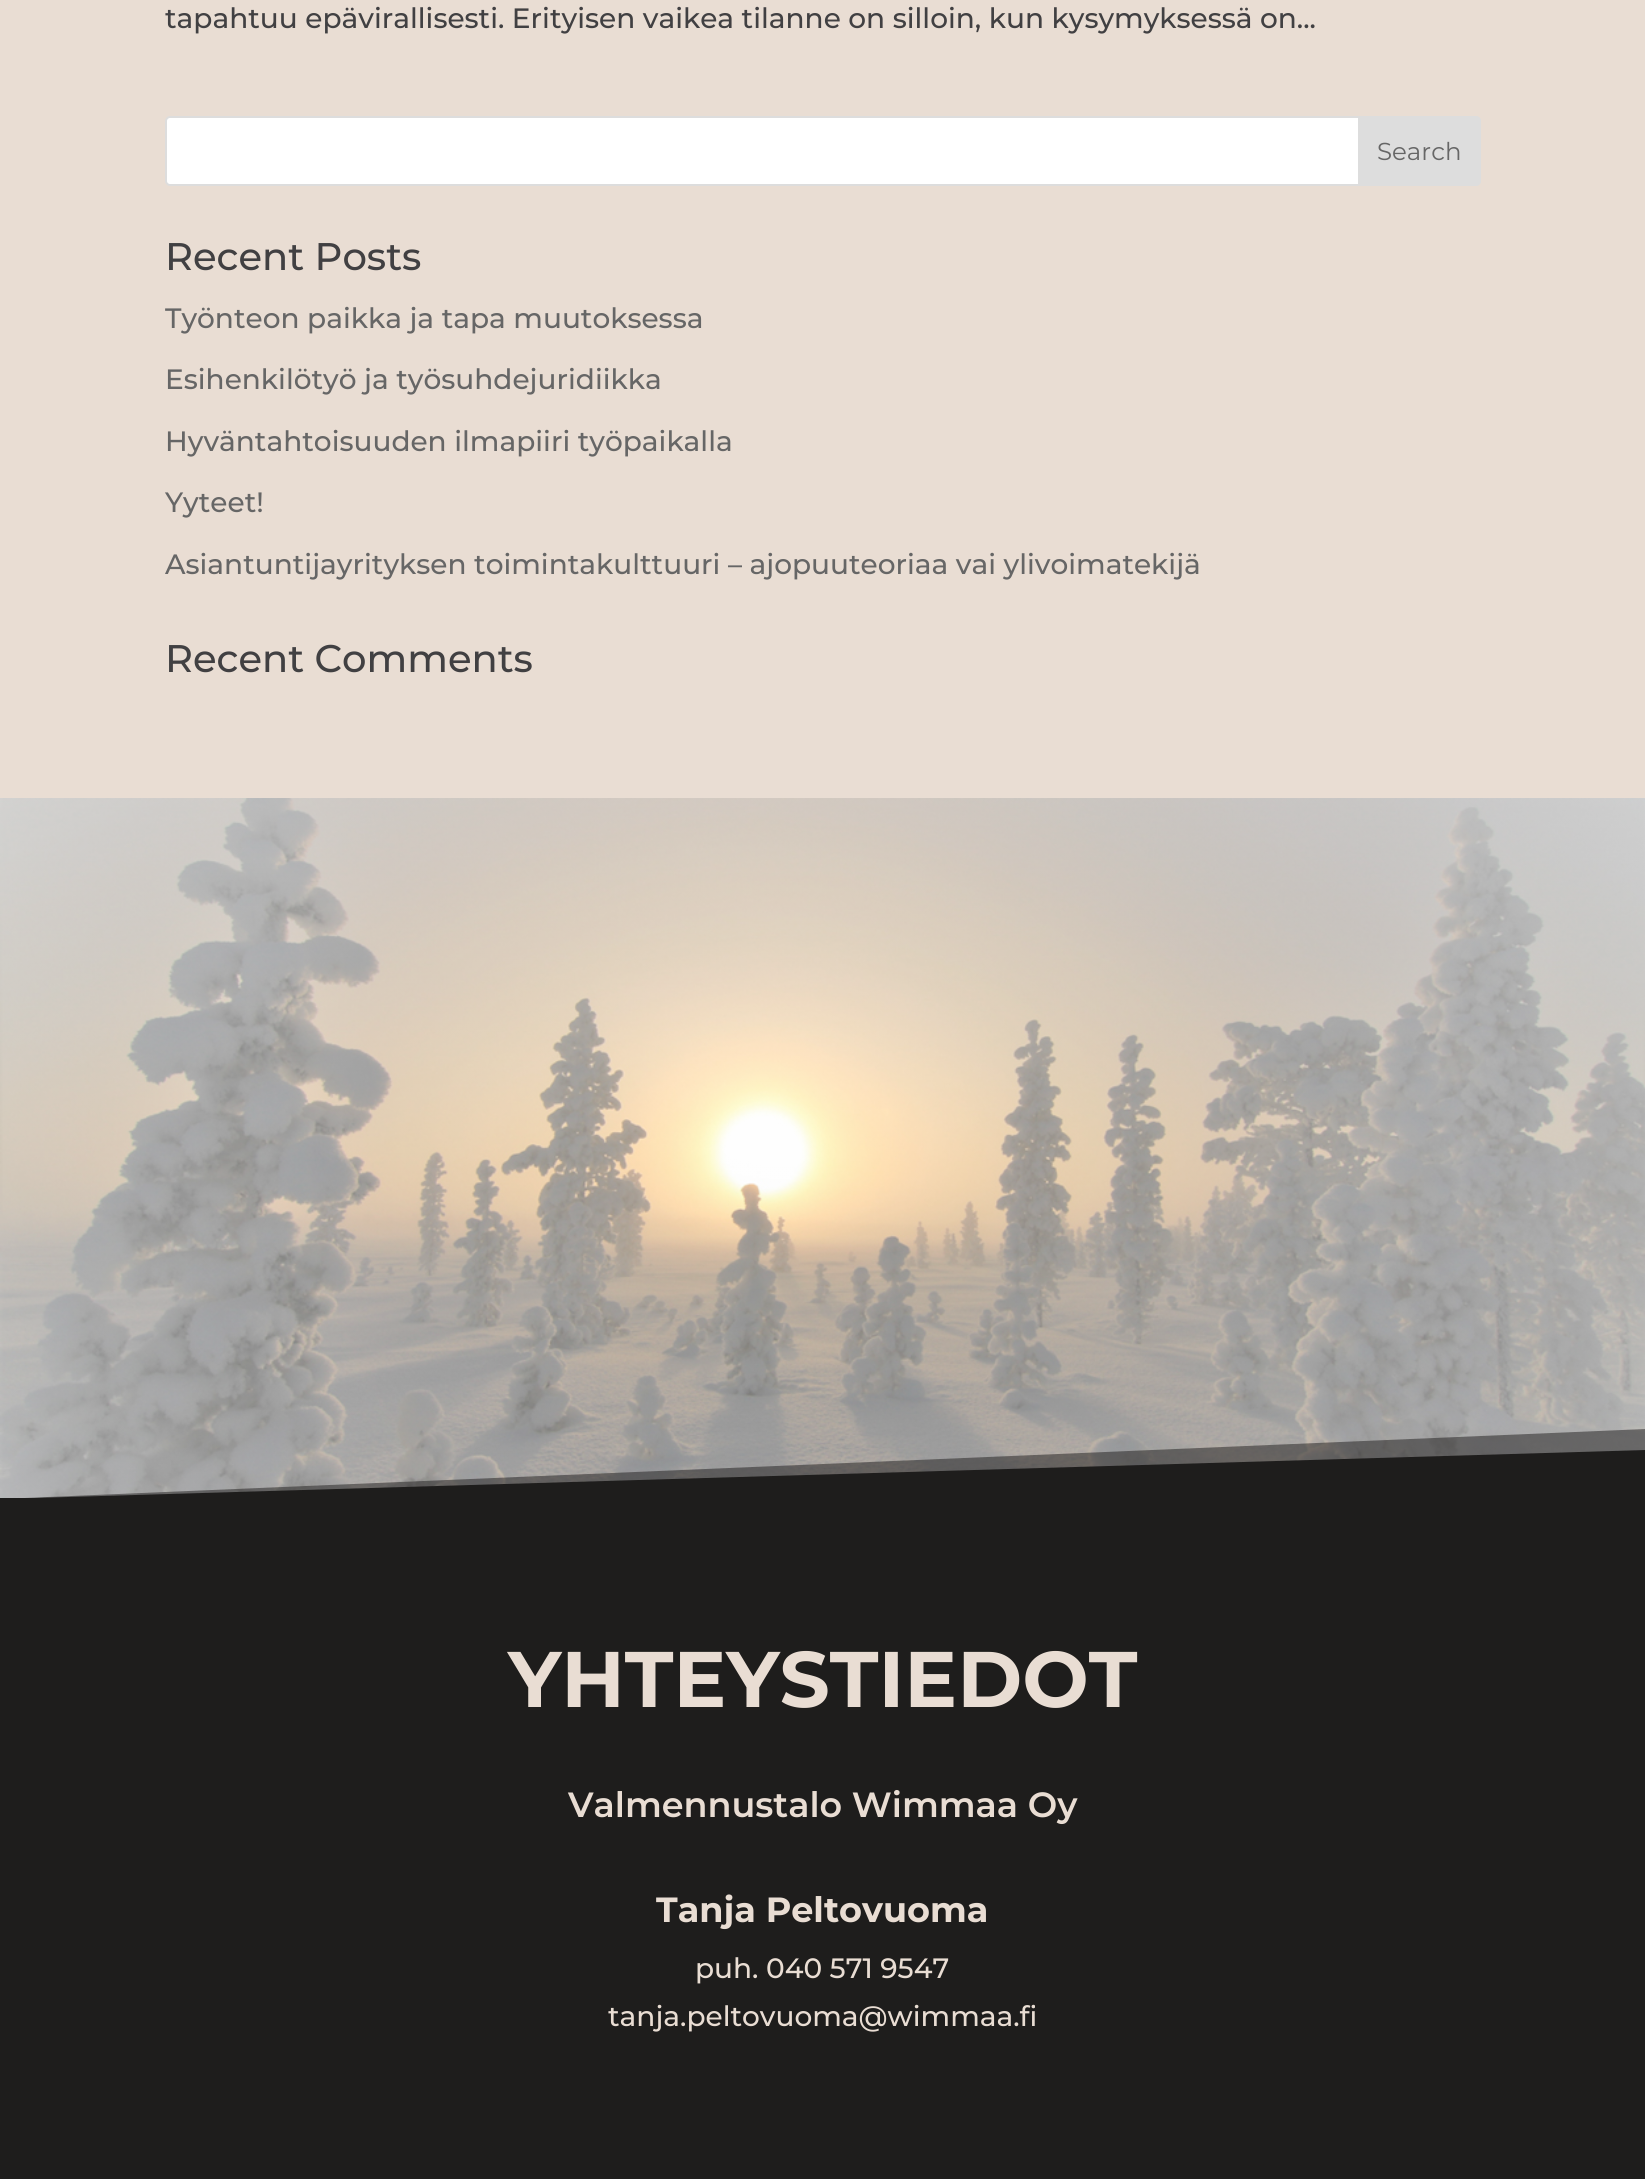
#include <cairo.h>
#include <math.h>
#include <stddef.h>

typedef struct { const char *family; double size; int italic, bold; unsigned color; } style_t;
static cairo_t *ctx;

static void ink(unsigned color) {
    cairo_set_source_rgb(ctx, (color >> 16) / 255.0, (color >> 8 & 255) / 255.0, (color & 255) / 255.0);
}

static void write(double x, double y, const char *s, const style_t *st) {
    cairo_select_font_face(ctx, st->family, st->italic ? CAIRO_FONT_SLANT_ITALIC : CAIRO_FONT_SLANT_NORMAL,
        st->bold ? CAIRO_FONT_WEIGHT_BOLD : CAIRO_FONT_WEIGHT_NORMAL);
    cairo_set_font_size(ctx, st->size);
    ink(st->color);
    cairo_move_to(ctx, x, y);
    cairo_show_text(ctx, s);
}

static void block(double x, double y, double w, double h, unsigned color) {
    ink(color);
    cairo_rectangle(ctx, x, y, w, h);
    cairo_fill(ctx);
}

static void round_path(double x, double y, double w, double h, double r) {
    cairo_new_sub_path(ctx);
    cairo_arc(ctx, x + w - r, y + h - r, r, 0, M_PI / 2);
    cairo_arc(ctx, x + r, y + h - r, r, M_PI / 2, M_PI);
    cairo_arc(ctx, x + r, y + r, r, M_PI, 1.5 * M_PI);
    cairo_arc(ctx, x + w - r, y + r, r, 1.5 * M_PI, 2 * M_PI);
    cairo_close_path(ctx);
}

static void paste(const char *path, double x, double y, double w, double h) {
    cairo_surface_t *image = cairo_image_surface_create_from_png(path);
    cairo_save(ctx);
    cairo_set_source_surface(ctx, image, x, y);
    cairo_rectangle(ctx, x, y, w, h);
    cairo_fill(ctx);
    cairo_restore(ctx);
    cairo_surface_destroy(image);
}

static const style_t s1 = {"Montserrat Medium", 28, 0, 0, 0x414042};
static const style_t s2 = {"Montserrat", 24.5, 0, 0, 0x666666};
static const style_t s3 = {"Montserrat Medium", 38.5, 0, 0, 0x414042};
static const style_t s4 = {"Montserrat Medium", 28, 0, 0, 0x666666};
static const style_t s5 = {"Montserrat", 78.75, 0, 1, 0xe9ddd3};
static const style_t s6 = {"Montserrat SemiBold", 35, 0, 0, 0xe9ddd3};
static const style_t s7 = {"Montserrat", 35, 0, 1, 0xe9ddd3};
static const style_t s8 = {"Montserrat Medium", 28, 0, 0, 0xe9ddd3};

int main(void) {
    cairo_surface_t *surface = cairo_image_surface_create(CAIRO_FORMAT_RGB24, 1645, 2179);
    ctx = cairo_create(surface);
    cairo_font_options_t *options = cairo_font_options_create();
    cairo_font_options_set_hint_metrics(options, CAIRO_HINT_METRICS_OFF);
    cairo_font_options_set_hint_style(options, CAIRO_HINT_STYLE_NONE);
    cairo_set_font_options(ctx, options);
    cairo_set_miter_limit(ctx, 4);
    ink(0xe9ddd3);
    cairo_paint(ctx);
    write(165, 28, "tapahtuu epävirallisesti. Erityisen vaikea tilanne on silloin, kun kysymyksessä on...", &s1);
    ink(0xffffff);
    round_path(166, 117, 1314, 68, 4);
    cairo_fill_preserve(ctx);
    ink(0xdddddd);
    cairo_stroke(ctx);
    cairo_new_path(ctx);
    cairo_move_to(ctx, 1359, 117);
    cairo_line_to(ctx, 1476, 117);
    cairo_curve_to(ctx, 1478, 117, 1480, 119, 1480, 121);
    cairo_line_to(ctx, 1480, 181);
    cairo_curve_to(ctx, 1480, 183, 1478, 185, 1476, 185);
    cairo_line_to(ctx, 1359, 185);
    cairo_close_path(ctx);
    cairo_fill_preserve(ctx);
    cairo_stroke(ctx);
    write(1377, 160, "Search", &s2);
    write(165, 270, "Recent Posts", &s3);
    write(165, 328, "Työnteon paikka ja tapa muutoksessa", &s4);
    write(165, 389, "Esihenkilötyö ja työsuhdejuridiikka", &s4);
    write(165, 451, "Hyväntahtoisuuden ilmapiiri työpaikalla", &s4);
    write(165, 512, "Yyteet!", &s4);
    write(165, 574, "Asiantuntijayrityksen toimintakulttuuri – ajopuuteoriaa vai ylivoimatekijä", &s4);
    write(165, 672, "Recent Comments", &s3);
    paste("pic1.png", 0, 798, 1645, 700);
    cairo_save(ctx);
    cairo_rectangle(ctx, 0, 1428, 1645, 70);
    cairo_clip(ctx);
    cairo_set_source_rgba(ctx, 0.118, 0.114, 0.11, 0.5);
    cairo_new_path(ctx);
    cairo_move_to(ctx, 1645, 1429);
    cairo_line_to(ctx, 1645, 1499);
    cairo_line_to(ctx, 0, 1499);
    cairo_close_path(ctx);
    cairo_fill(ctx);
    ink(0x1e1d1c);
    cairo_new_path(ctx);
    cairo_move_to(ctx, 1645, 1450);
    cairo_line_to(ctx, 1645, 1499);
    cairo_line_to(ctx, 0, 1499);
    cairo_close_path(ctx);
    cairo_fill(ctx);
    cairo_restore(ctx);
    block(0, 1498, 1645, 681, 0x1e1d1c);
    write(508, 1707, "YHTEYSTIEDOT", &s5);
    write(568, 1817, "Valmennustalo Wimmaa Oy", &s6);
    write(656, 1922, "Tanja Peltovuoma", &s7);
    write(695, 1978, "puh. 040 571 9547", &s8);
    write(608, 2026, "tanja.peltovuoma@wimmaa.fi", &s8);
    cairo_surface_write_to_png(surface, "screenshot.png");
    cairo_font_options_destroy(options);
    cairo_destroy(ctx);
    cairo_surface_destroy(surface);
    return 0;
}
